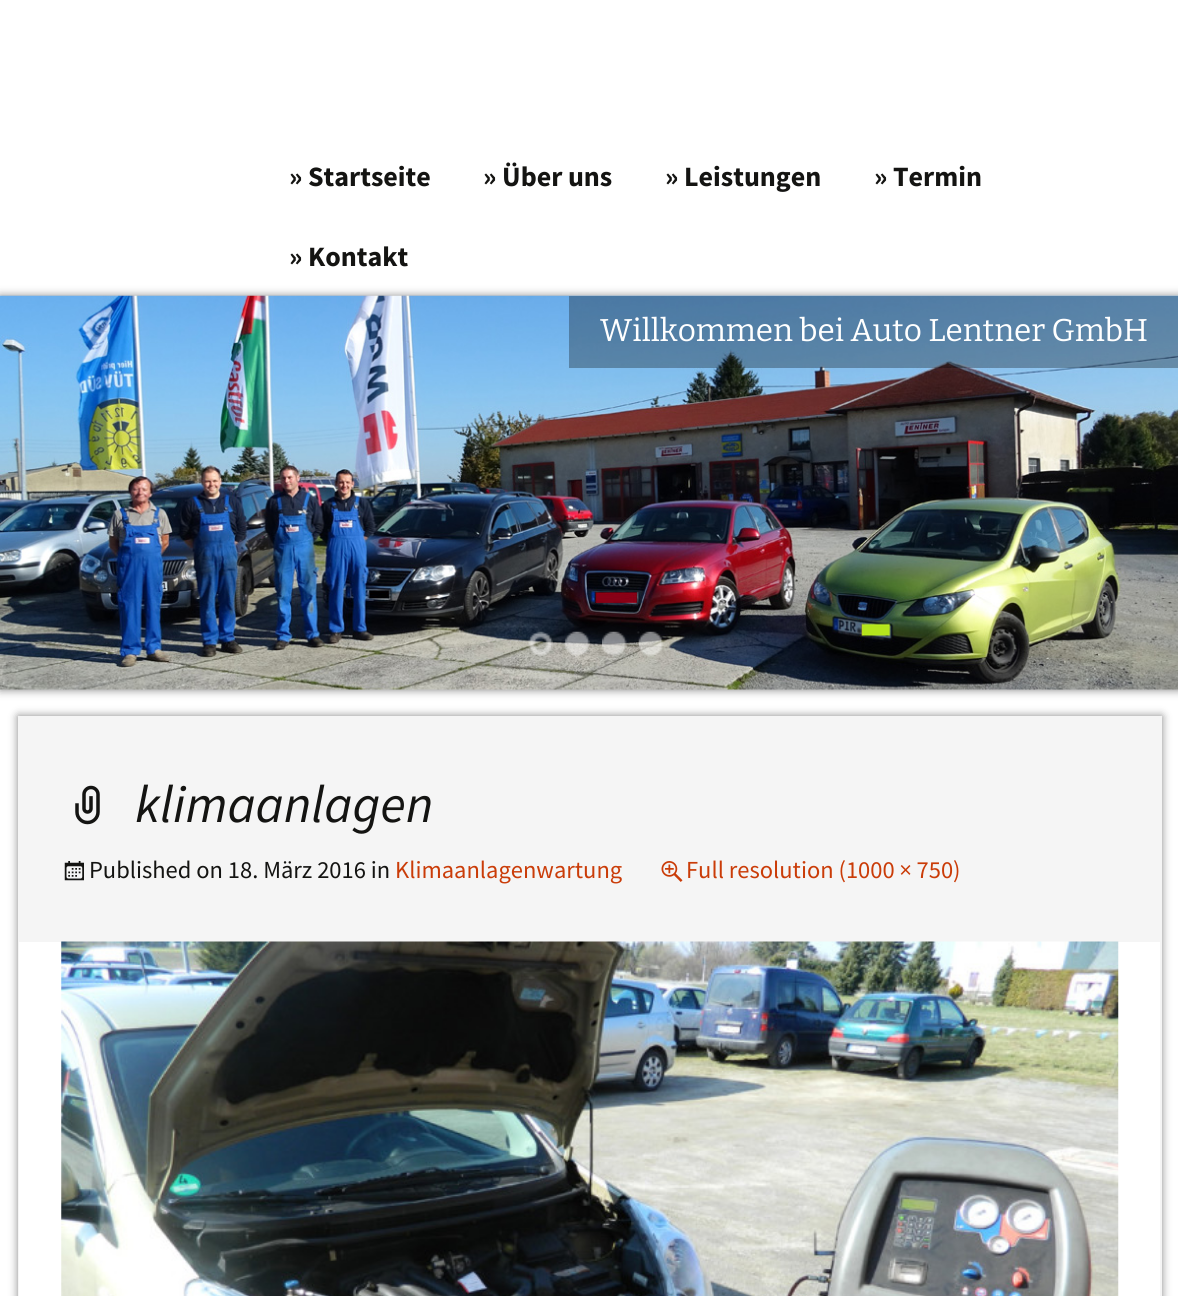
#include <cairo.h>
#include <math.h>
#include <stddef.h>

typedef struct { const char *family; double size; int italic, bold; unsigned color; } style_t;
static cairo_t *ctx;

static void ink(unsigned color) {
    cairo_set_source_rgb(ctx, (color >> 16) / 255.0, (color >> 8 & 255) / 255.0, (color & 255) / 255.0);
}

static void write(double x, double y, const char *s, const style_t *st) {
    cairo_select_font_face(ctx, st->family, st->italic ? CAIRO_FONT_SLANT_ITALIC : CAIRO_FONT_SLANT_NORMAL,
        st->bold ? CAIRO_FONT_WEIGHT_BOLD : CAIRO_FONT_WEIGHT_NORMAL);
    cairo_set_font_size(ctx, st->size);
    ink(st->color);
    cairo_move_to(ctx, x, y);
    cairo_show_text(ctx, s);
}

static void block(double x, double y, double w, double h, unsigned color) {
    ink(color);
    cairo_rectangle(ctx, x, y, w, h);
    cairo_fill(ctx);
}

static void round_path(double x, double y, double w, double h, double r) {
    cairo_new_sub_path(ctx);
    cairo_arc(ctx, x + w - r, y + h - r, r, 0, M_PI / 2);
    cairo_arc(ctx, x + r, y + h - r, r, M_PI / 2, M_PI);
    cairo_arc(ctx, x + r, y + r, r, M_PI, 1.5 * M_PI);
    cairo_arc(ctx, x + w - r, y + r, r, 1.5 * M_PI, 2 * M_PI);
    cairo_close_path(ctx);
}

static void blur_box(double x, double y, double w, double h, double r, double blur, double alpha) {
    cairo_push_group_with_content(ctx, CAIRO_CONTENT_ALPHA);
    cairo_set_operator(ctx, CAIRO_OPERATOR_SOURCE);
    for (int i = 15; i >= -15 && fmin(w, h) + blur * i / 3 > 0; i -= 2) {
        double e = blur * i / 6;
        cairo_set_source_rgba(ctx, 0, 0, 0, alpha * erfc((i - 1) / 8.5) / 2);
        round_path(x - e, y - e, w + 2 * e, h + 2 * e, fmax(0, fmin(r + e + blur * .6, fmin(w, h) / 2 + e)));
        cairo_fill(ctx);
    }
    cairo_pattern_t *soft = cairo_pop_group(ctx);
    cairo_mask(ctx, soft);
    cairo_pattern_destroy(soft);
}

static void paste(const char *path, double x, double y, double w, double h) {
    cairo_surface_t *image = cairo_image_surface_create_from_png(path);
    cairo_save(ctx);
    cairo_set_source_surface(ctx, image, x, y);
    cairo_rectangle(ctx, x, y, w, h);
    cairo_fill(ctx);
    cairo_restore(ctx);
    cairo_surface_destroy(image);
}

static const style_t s1 = {"Source Sans Pro", 28, 0, 1, 0x141412};
static const style_t s2 = {"Bitter", 31.5, 0, 0, 0xffffff};
static const style_t s3 = {"Source Sans Pro", 52.5, 1, 0, 0x141412};
static const style_t s4 = {"Source Sans Pro", 24.5, 0, 0, 0x141412};
static const style_t s5 = {"Source Sans Pro", 24.5, 0, 0, 0xca3c08};

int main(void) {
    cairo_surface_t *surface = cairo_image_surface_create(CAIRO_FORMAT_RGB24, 1178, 1296);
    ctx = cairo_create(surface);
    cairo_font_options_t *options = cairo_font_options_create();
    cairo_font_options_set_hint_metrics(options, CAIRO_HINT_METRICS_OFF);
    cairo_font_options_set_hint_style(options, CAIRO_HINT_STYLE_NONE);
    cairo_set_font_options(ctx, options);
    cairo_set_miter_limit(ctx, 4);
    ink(0xffffff);
    cairo_paint(ctx);
    write(289, 186, "» Startseite", &s1);
    write(483, 186, "» Über uns", &s1);
    write(665, 186, "» Leistungen", &s1);
    write(874, 186, "» Termin", &s1);
    write(289, 266, "» Kontakt", &s1);
    ink(0x888888);
    blur_box(0, 296, 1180, 394, 0, 4.5, 1);
    paste("pic1.png", 0, 295, 1178, 395);
    cairo_set_source_rgba(ctx, 0, 0, 0, 0.3);
    cairo_rectangle(ctx, 569, 296, 609, 72);
    cairo_fill(ctx);
    write(600, 341, "Willkommen bei Auto Lentner GmbH", &s2);
    paste("pic2.png", 528, 631, 25, 26);
    paste("pic3.png", 565, 631, 25, 25);
    paste("pic4.png", 602, 631, 25, 26);
    paste("pic5.png", 638, 631, 26, 26);
    ink(0x888888);
    blur_box(18, 716, 1144, 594, 0, 4.5, 1);
    cairo_rectangle(ctx, 19, 717, 1142, 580);
    ink(0xf5f5f5);
    cairo_stroke(ctx);
    block(20, 718, 1140, 224, 0xf5f5f5);
    paste("pic6.png", 75, 785, 25, 40);
    write(135, 822, "klimaanlagen", &s3);
    paste("pic7.png", 64, 861, 20, 20);
    write(89, 878, "Published on 18. März 2016 in", &s4);
    write(395, 878, "Klimaanlagenwartung", &s5);
    paste("pic8.png", 661, 861, 22, 21);
    write(686, 878, "Full resolution (1000 × 750)", &s5);
    block(19, 942, 1141, 354, 0xffffff);
    paste("pic9.png", 61, 941, 1058, 355);
    cairo_surface_write_to_png(surface, "screenshot.png");
    cairo_font_options_destroy(options);
    cairo_destroy(ctx);
    cairo_surface_destroy(surface);
    return 0;
}
